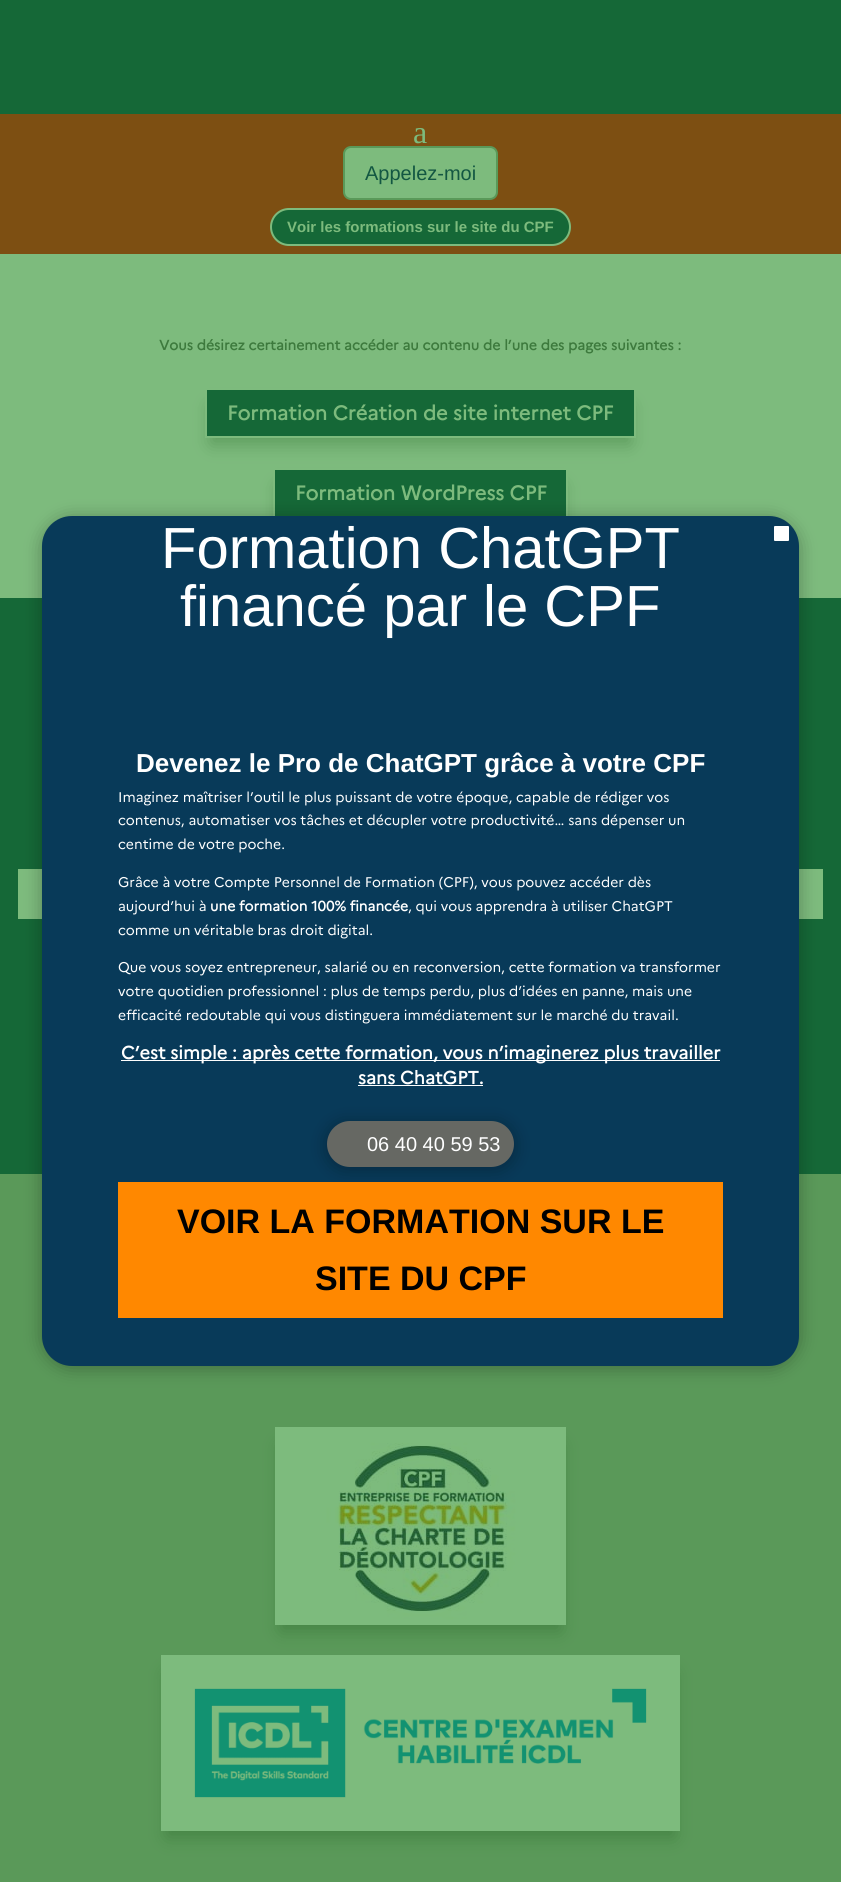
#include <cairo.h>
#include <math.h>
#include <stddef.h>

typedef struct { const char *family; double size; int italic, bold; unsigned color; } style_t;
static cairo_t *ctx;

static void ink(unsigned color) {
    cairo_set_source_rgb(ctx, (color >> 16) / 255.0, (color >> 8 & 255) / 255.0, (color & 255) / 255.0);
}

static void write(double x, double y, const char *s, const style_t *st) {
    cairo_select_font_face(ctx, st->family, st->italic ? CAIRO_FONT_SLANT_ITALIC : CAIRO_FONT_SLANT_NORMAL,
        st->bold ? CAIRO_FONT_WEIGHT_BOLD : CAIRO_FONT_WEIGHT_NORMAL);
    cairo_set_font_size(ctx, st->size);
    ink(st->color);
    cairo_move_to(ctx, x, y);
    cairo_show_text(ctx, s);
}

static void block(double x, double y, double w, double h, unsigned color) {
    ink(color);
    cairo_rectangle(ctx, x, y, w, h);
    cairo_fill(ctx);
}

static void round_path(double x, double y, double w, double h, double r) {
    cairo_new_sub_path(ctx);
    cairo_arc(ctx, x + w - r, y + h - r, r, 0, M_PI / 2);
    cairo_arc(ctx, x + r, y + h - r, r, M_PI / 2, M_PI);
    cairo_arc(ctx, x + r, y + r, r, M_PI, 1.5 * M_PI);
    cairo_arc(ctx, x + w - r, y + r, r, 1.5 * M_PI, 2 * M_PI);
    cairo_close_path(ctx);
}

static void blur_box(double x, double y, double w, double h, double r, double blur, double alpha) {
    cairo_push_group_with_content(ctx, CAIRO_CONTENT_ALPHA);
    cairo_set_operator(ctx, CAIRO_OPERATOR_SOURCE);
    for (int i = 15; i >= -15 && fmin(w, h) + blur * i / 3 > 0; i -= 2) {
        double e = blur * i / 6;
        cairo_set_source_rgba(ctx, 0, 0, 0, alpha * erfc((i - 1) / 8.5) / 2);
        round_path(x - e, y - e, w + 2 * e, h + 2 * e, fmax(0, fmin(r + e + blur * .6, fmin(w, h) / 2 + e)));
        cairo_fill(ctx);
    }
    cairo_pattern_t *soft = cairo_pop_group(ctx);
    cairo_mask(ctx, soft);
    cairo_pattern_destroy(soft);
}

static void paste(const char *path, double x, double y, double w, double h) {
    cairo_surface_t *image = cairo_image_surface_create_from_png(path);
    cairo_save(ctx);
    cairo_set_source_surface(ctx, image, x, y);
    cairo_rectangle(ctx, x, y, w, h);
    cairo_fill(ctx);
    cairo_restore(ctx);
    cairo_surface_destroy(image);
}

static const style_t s1 = {"Liberation Serif", 32, 0, 0, 0x7dbb7d};
static const style_t s2 = {"Liberation Sans", 20, 0, 0, 0x135742};
static const style_t s3 = {"Liberation Sans", 15, 0, 1, 0x7dbb7d};
static const style_t s4 = {"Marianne", 14, 0, 1, 0x3d7a3d};
static const style_t s5 = {"Marianne", 20, 0, 1, 0x7dbb7d};
static const style_t s6 = {"Liberation Sans", 58, 0, 0, 0xffffff};
static const style_t s7 = {"Liberation Sans", 26, 0, 1, 0xffffff};
static const style_t s8 = {"Marianne", 14, 0, 0, 0xffffff};
static const style_t s9 = {"Marianne", 14, 0, 1, 0xffffff};
static const style_t s10 = {"Marianne", 18, 0, 1, 0xffffff};
static const style_t s11 = {"Liberation Sans", 20, 0, 0, 0xffffff};
static const style_t s12 = {"Liberation Sans", 34, 0, 1, 0x000000};

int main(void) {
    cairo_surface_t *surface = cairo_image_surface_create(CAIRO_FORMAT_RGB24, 841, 1882);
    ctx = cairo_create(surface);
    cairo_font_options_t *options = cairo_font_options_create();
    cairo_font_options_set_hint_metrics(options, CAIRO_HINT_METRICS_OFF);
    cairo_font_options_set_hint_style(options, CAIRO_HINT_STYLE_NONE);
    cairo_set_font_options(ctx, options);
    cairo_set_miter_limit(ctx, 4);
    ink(0x7dbb7d);
    cairo_paint(ctx);
    block(0, 114, 841, 140, 0x7d4f12);
    block(0, 0, 841, 114, 0x156837);
    write(413, 143, "a", &s1);
    round_path(344, 147, 153, 52, 7);
    cairo_fill_preserve(ctx);
    ink(0x5a9959);
    cairo_stroke(ctx);
    write(365, 180, "Appelez-moi", &s2);
    ink(0x156837);
    round_path(271, 209, 299, 36, 18);
    cairo_fill_preserve(ctx);
    ink(0x7dbb7d);
    cairo_stroke(ctx);
    write(287, 232, "Voir les formations sur le site du CPF", &s3);
    write(159, 350, "Vous désirez certainement accéder au contenu de l’une des pages suivantes :", &s4);
    ink(0x124f12);
    blur_box(211, 406, 419, 38, 0, 9, 0.3);
    ink(0x156837);
    cairo_rectangle(ctx, 206, 389, 429, 48);
    cairo_fill_preserve(ctx);
    ink(0x7dbb7d);
    cairo_stroke(ctx);
    write(227, 420, "Formation Création de site internet CPF", &s5);
    ink(0x124f12);
    blur_box(279, 486, 283, 38, 0, 9, 0.3);
    ink(0x156837);
    cairo_rectangle(ctx, 274, 469, 293, 48);
    cairo_fill_preserve(ctx);
    ink(0x7dbb7d);
    cairo_stroke(ctx);
    write(295, 500, "Formation WordPress CPF", &s5);
    block(0, 598, 841, 576, 0x156837);
    block(18, 869, 24, 50, 0x7dbb7d);
    block(799, 869, 24, 50, 0x7dbb7d);
    block(0, 1174, 841, 708, 0x5a9959);
    ink(0x124f12);
    blur_box(281, 1445, 279, 186, 0, 9, 0.3);
    paste("pic1.png", 275, 1427, 291, 198);
    blur_box(167, 1673, 507, 164, 0, 9, 0.3);
    paste("pic2.png", 161, 1655, 519, 176);
    ink(0x000000);
    blur_box(42, 518, 757, 850, 30, 9, 0.3);
    ink(0x083a59);
    round_path(42, 516, 757, 850, 30);
    cairo_fill(ctx);
    write(161, 568, "Formation ChatGPT", &s6);
    write(180, 626, "financé par le CPF", &s6);
    write(136, 772, "Devenez le Pro de ChatGPT grâce à votre CPF", &s7);
    write(118, 802, "Imaginez maîtriser l’outil le plus puissant de votre époque, capable de rédiger vos", &s8);
    write(118, 825, "contenus, automatiser vos tâches et décupler votre productivité… sans dépenser un", &s8);
    write(118, 849, "centime de votre poche.", &s8);
    write(118, 887, "Grâce à votre Compte Personnel de Formation (CPF), vous pouvez accéder dès", &s8);
    write(118, 911, "aujourd’hui à", &s8);
    write(210, 911, "une formation 100% financée", &s9);
    write(408, 911, ", qui vous apprendra à utiliser ChatGPT", &s8);
    write(118, 935, "comme un véritable bras droit digital.", &s8);
    write(118, 972, "Que vous soyez entrepreneur, salarié ou en reconversion, cette formation va transformer", &s8);
    write(118, 996, "votre quotidien professionnel : plus de temps perdu, plus d’idées en panne, mais une", &s8);
    write(118, 1020, "efficacité redoutable qui vous distinguera immédiatement sur le marché du travail.", &s8);
    block(121, 1060, 599, 1, 0xffffff);
    write(121, 1059, "C’est simple : après cette formation, vous n’imaginerez plus travailler", &s10);
    write(358, 1084, "sans ChatGPT.", &s10);
    block(358, 1085, 125, 1, 0xffffff);
    ink(0x000000);
    blur_box(327, 1123, 187, 46, 23, 9, 0.3);
    ink(0x666863);
    round_path(327, 1121, 187, 46, 23);
    cairo_fill(ctx);
    write(367, 1151, "06 40 40 59 53", &s11);
    block(118, 1182, 605, 136, 0xff8800);
    write(177, 1233, "VOIR LA FORMATION SUR LE", &s12);
    write(315, 1290, "SITE DU CPF", &s12);
    ink(0xffffff);
    round_path(774, 526, 15, 15, 1);
    cairo_fill(ctx);
    cairo_surface_write_to_png(surface, "screenshot.png");
    cairo_font_options_destroy(options);
    cairo_destroy(ctx);
    cairo_surface_destroy(surface);
    return 0;
}
